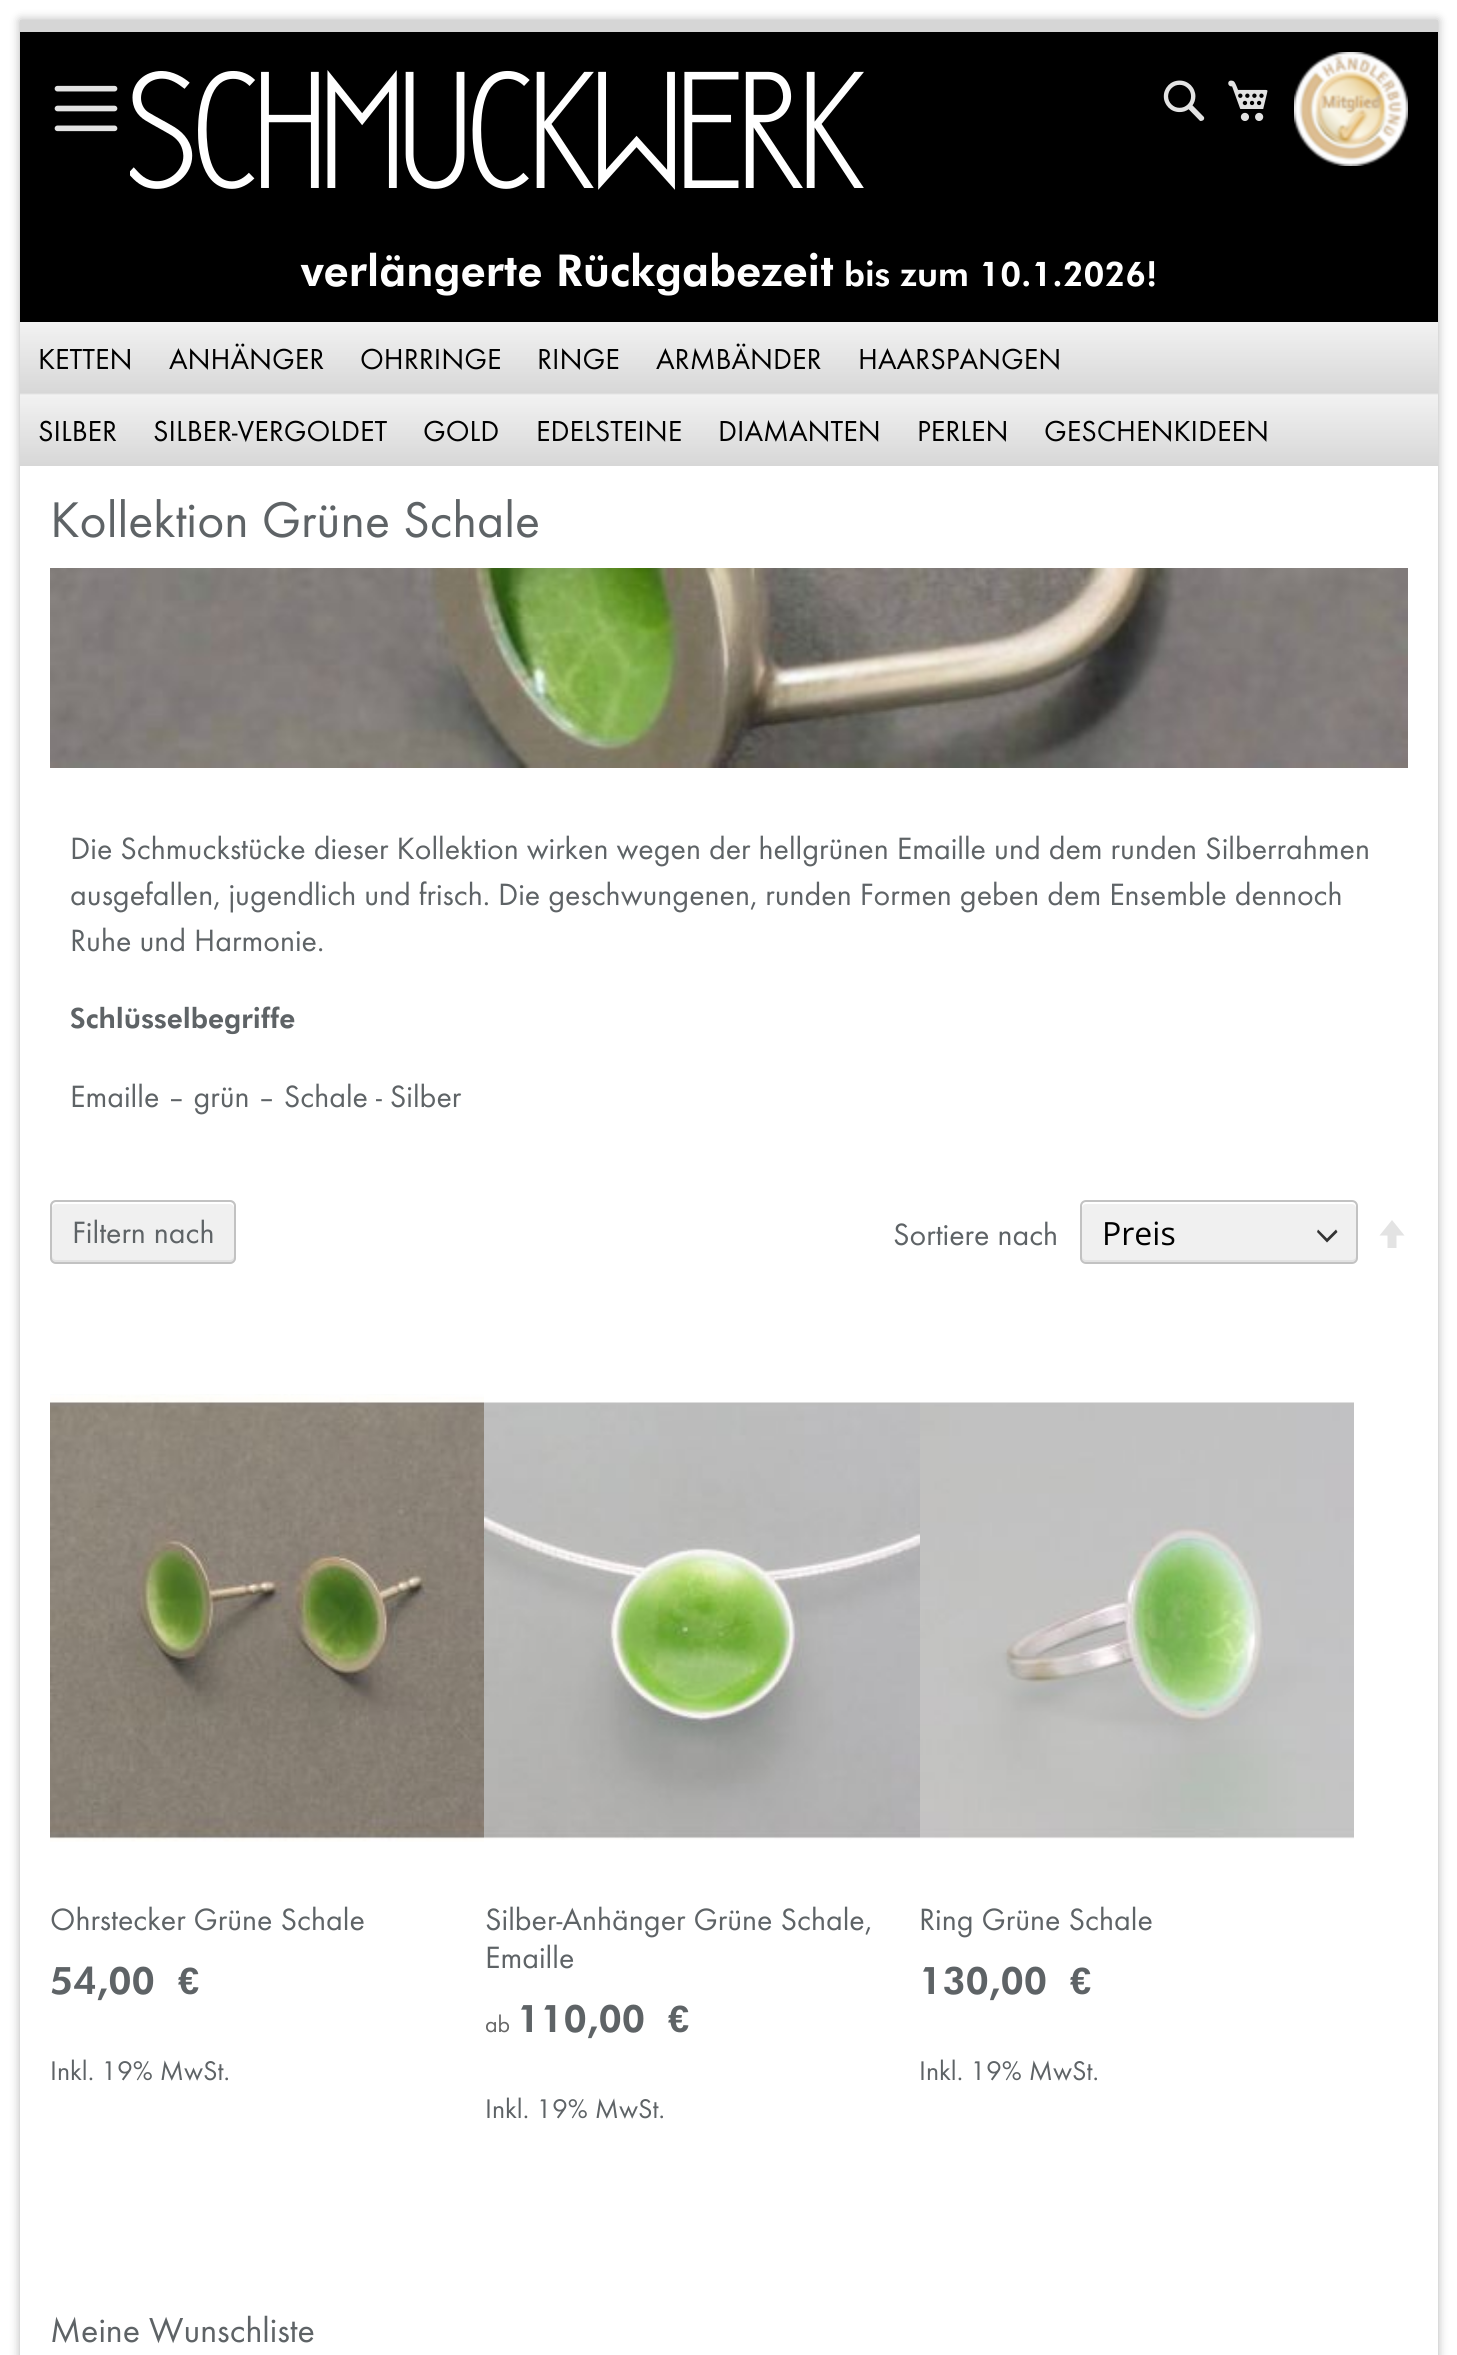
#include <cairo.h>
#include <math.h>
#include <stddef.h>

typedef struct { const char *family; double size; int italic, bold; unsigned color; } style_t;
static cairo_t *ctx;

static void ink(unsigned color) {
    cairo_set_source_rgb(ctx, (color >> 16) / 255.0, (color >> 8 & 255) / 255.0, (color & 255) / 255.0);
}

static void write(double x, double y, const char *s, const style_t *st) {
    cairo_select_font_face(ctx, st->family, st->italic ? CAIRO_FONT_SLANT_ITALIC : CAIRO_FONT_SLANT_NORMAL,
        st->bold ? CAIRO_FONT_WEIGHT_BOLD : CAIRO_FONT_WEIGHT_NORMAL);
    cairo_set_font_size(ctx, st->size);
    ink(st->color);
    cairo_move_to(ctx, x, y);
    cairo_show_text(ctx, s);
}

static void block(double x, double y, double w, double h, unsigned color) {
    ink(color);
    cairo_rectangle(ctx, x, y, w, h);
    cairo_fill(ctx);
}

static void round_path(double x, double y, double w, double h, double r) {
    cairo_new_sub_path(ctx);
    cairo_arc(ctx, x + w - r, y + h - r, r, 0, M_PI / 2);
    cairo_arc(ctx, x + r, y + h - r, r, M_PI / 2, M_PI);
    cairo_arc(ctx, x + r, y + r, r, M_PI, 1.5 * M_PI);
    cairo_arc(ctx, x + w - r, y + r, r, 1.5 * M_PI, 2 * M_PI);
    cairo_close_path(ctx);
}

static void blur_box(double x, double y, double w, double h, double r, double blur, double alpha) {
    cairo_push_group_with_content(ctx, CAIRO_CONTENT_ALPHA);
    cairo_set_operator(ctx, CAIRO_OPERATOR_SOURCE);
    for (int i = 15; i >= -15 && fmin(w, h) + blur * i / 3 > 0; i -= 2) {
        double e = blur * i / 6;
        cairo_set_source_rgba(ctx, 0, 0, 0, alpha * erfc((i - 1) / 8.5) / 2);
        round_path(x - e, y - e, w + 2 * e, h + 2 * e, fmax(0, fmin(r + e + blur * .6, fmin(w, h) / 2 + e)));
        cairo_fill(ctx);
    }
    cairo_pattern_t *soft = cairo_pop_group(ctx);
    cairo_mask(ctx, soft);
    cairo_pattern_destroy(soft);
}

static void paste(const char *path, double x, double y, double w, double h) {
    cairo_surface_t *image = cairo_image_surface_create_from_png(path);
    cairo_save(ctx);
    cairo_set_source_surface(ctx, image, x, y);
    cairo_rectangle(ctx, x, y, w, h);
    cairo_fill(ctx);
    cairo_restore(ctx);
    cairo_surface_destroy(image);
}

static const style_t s1 = {"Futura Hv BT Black", 44, 0, 0, 0xffffff};
static const style_t s2 = {"Futura Hv BT Black", 34, 0, 0, 0xffffff};
static const style_t s3 = {"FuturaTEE", 30, 0, 0, 0x000000};
static const style_t s4 = {"FuturaTEE", 52, 0, 0, 0x5e6366};
static const style_t s5 = {"FuturaTEE", 32, 0, 0, 0x5e6366};
static const style_t s6 = {"Futura Hv BT Black", 28, 0, 0, 0x5e6366};
static const style_t s7 = {"Open Sans", 32, 0, 0, 0x000000};
static const style_t s8 = {"Futura Hv BT Black", 38, 0, 0, 0x5e6366};
static const style_t s9 = {"Liberation Sans", 38, 0, 1, 0x5e6366};
static const style_t s10 = {"FuturaTEE", 28, 0, 0, 0x5e6366};
static const style_t s11 = {"FuturaTEE", 24, 0, 0, 0x666666};
static const style_t s12 = {"FuturaTEE", 36, 0, 0, 0x5e6366};

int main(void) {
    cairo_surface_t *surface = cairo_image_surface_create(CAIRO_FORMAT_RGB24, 1457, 2355);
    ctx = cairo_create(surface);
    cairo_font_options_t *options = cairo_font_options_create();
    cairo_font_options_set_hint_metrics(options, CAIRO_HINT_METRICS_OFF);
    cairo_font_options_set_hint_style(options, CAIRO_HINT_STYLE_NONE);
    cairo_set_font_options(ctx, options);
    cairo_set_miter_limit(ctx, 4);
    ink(0xffffff);
    cairo_paint(ctx);
    cairo_save(ctx);
    cairo_set_fill_rule(ctx, CAIRO_FILL_RULE_EVEN_ODD);
    cairo_new_path(ctx);
    cairo_move_to(ctx, 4, 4);
    cairo_line_to(ctx, 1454, 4);
    cairo_line_to(ctx, 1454, 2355);
    cairo_line_to(ctx, 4, 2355);
    cairo_close_path(ctx);
    cairo_move_to(ctx, 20, 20);
    cairo_line_to(ctx, 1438, 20);
    cairo_line_to(ctx, 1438, 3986);
    cairo_line_to(ctx, 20, 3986);
    cairo_close_path(ctx);
    cairo_clip(ctx);
    ink(0x000000);
    blur_box(20, 20, 1418, 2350, 0, 5, 0.3);
    cairo_restore(ctx);
    block(20, 32, 1418, 290, 0x000000);
    block(20, 20, 1418, 12, 0xd6d6d6);
    paste("pic1.png", 54, 85, 64, 47);
    paste("pic2.png", 130, 70, 734, 120);
    paste("pic3.png", 1163, 80, 42, 41);
    paste("pic4.png", 1228, 80, 40, 41);
    paste("pic5.png", 1294, 52, 114, 114);
    write(301, 286, "verlängerte Rückgabezeit", &s1);
    write(844, 286, "bis zum 10.1.2026!", &s2);
    paste("pic6.png", 20, 322, 1418, 144);
    write(38, 369, "KETTEN", &s3);
    write(169, 369, "ANHÄNGER", &s3);
    write(360, 369, "OHRRINGE", &s3);
    write(537, 369, "RINGE", &s3);
    write(656, 369, "ARMBÄNDER", &s3);
    write(858, 369, "HAARSPANGEN", &s3);
    write(38, 441, "SILBER", &s3);
    write(153, 441, "SILBER-VERGOLDET", &s3);
    write(423, 441, "GOLD", &s3);
    write(536, 441, "EDELSTEINE", &s3);
    write(718, 441, "DIAMANTEN", &s3);
    write(917, 441, "PERLEN", &s3);
    write(1044, 441, "GESCHENKIDEEN", &s3);
    write(50, 537, "Kollektion Grüne Schale", &s4);
    paste("pic7.png", 50, 568, 1358, 200);
    write(70, 859, "Die Schmuckstücke dieser Kollektion wirken wegen der hellgrünen Emaille und dem runden Silberrahmen", &s5);
    write(70, 905, "ausgefallen, jugendlich und frisch. Die geschwungenen, runden Formen geben dem Ensemble dennoch", &s5);
    write(70, 951, "Ruhe und Harmonie.", &s5);
    write(70, 1028, "Schlüsselbegriffe", &s6);
    write(70, 1107, "Emaille – grün – Schale - Silber", &s5);
    ink(0xf0f0f0);
    round_path(50, 1200, 186, 64, 6);
    cairo_fill(ctx);
    ink(0xe2e2e2);
    cairo_new_path(ctx);
    cairo_move_to(ctx, 52, 1256);
    cairo_line_to(ctx, 52, 1258);
    cairo_curve_to(ctx, 52, 1260, 54, 1262, 56, 1262);
    cairo_line_to(ctx, 230, 1262);
    cairo_curve_to(ctx, 232, 1262, 234, 1260, 234, 1258);
    cairo_line_to(ctx, 234, 1256);
    cairo_curve_to(ctx, 234, 1258, 232, 1260, 230, 1260);
    cairo_line_to(ctx, 56, 1260);
    cairo_curve_to(ctx, 54, 1260, 52, 1258, 52, 1256);
    cairo_close_path(ctx);
    cairo_fill(ctx);
    ink(0xffffff);
    cairo_new_path(ctx);
    cairo_move_to(ctx, 56, 1204);
    cairo_line_to(ctx, 230, 1204);
    cairo_curve_to(ctx, 232, 1204, 234, 1206, 234, 1208);
    cairo_line_to(ctx, 234, 1206);
    cairo_curve_to(ctx, 234, 1204, 232, 1202, 230, 1202);
    cairo_line_to(ctx, 56, 1202);
    cairo_curve_to(ctx, 54, 1202, 52, 1204, 52, 1206);
    cairo_line_to(ctx, 52, 1208);
    cairo_curve_to(ctx, 52, 1206, 54, 1204, 56, 1204);
    cairo_close_path(ctx);
    cairo_fill(ctx);
    round_path(51, 1201, 184, 62, 5);
    ink(0xc2c2c2);
    cairo_stroke(ctx);
    write(72, 1243, "Filtern nach", &s5);
    write(893, 1245, "Sortiere nach", &s5);
    ink(0xf0f0f0);
    round_path(1082, 1202, 274, 60, 4);
    cairo_fill(ctx);
    ink(0x333333);
    cairo_set_fill_rule(ctx, CAIRO_FILL_RULE_EVEN_ODD);
    cairo_new_path(ctx);
    cairo_move_to(ctx, 1327.5, 1242);
    cairo_line_to(ctx, 1337.5, 1232);
    cairo_line_to(ctx, 1336, 1229.5);
    cairo_line_to(ctx, 1327, 1238.5);
    cairo_line_to(ctx, 1318, 1229.5);
    cairo_line_to(ctx, 1317, 1232);
    cairo_line_to(ctx, 1327, 1242.5);
    cairo_close_path(ctx);
    cairo_fill(ctx);
    cairo_set_source_rgba(ctx, 0.761, 0.761, 0.761, 0.3);
    cairo_set_fill_rule(ctx, CAIRO_FILL_RULE_WINDING);
    cairo_new_path(ctx);
    cairo_move_to(ctx, 1082, 1256);
    cairo_curve_to(ctx, 1082, 1259, 1082, 1262, 1086, 1262);
    cairo_line_to(ctx, 1352, 1262);
    cairo_curve_to(ctx, 1356, 1262, 1356, 1259, 1356, 1256);
    cairo_curve_to(ctx, 1356, 1258, 1354, 1260, 1352, 1260);
    cairo_line_to(ctx, 1086, 1260);
    cairo_curve_to(ctx, 1084, 1260, 1082, 1258, 1082, 1256);
    cairo_close_path(ctx);
    cairo_fill(ctx);
    ink(0xffffff);
    cairo_new_path(ctx);
    cairo_move_to(ctx, 1086, 1204);
    cairo_line_to(ctx, 1352, 1204);
    cairo_curve_to(ctx, 1354, 1204, 1356, 1206, 1356, 1208);
    cairo_curve_to(ctx, 1356, 1205, 1356, 1202, 1352, 1202);
    cairo_line_to(ctx, 1086, 1202);
    cairo_curve_to(ctx, 1082, 1202, 1082, 1205, 1082, 1208);
    cairo_curve_to(ctx, 1082, 1206, 1084, 1204, 1086, 1204);
    cairo_close_path(ctx);
    cairo_fill(ctx);
    round_path(1081, 1201, 276, 62, 5);
    ink(0xc2c2c2);
    cairo_stroke(ctx);
    write(1102, 1245, "Preis", &s7);
    ink(0xe3e3e3);
    cairo_new_path(ctx);
    cairo_move_to(ctx, 1392, 1220);
    cairo_line_to(ctx, 1379.5, 1235.5);
    cairo_line_to(ctx, 1387.5, 1235.5);
    cairo_line_to(ctx, 1387.5, 1248);
    cairo_line_to(ctx, 1396.5, 1248);
    cairo_line_to(ctx, 1396.5, 1235.5);
    cairo_line_to(ctx, 1404.5, 1235.5);
    cairo_close_path(ctx);
    cairo_fill(ctx);
    paste("pic8.png", 50, 1394, 434, 448);
    write(50, 1930, "Ohrstecker Grüne Schale", &s5);
    write(50, 1994, "54,00", &s8);
    write(178, 1994, "€", &s9);
    write(50, 2080, "Inkl. 19% MwSt.", &s10);
    paste("pic9.png", 484, 1402, 436, 438);
    write(485, 1930, "Silber-Anhänger Grüne Schale,", &s5);
    write(485, 1968, "Emaille", &s5);
    write(485, 2032, "ab", &s11);
    write(517, 2032, "110,00", &s8);
    write(668, 2032, "€", &s9);
    write(485, 2118, "Inkl. 19% MwSt.", &s10);
    paste("pic10.png", 920, 1402, 434, 437);
    write(919, 1930, "Ring Grüne Schale", &s5);
    write(919, 1994, "130,00", &s8);
    write(1070, 1994, "€", &s9);
    write(919, 2080, "Inkl. 19% MwSt.", &s10);
    write(50, 2342, "Meine Wunschliste", &s12);
    cairo_surface_write_to_png(surface, "screenshot.png");
    cairo_font_options_destroy(options);
    cairo_destroy(ctx);
    cairo_surface_destroy(surface);
    return 0;
}
